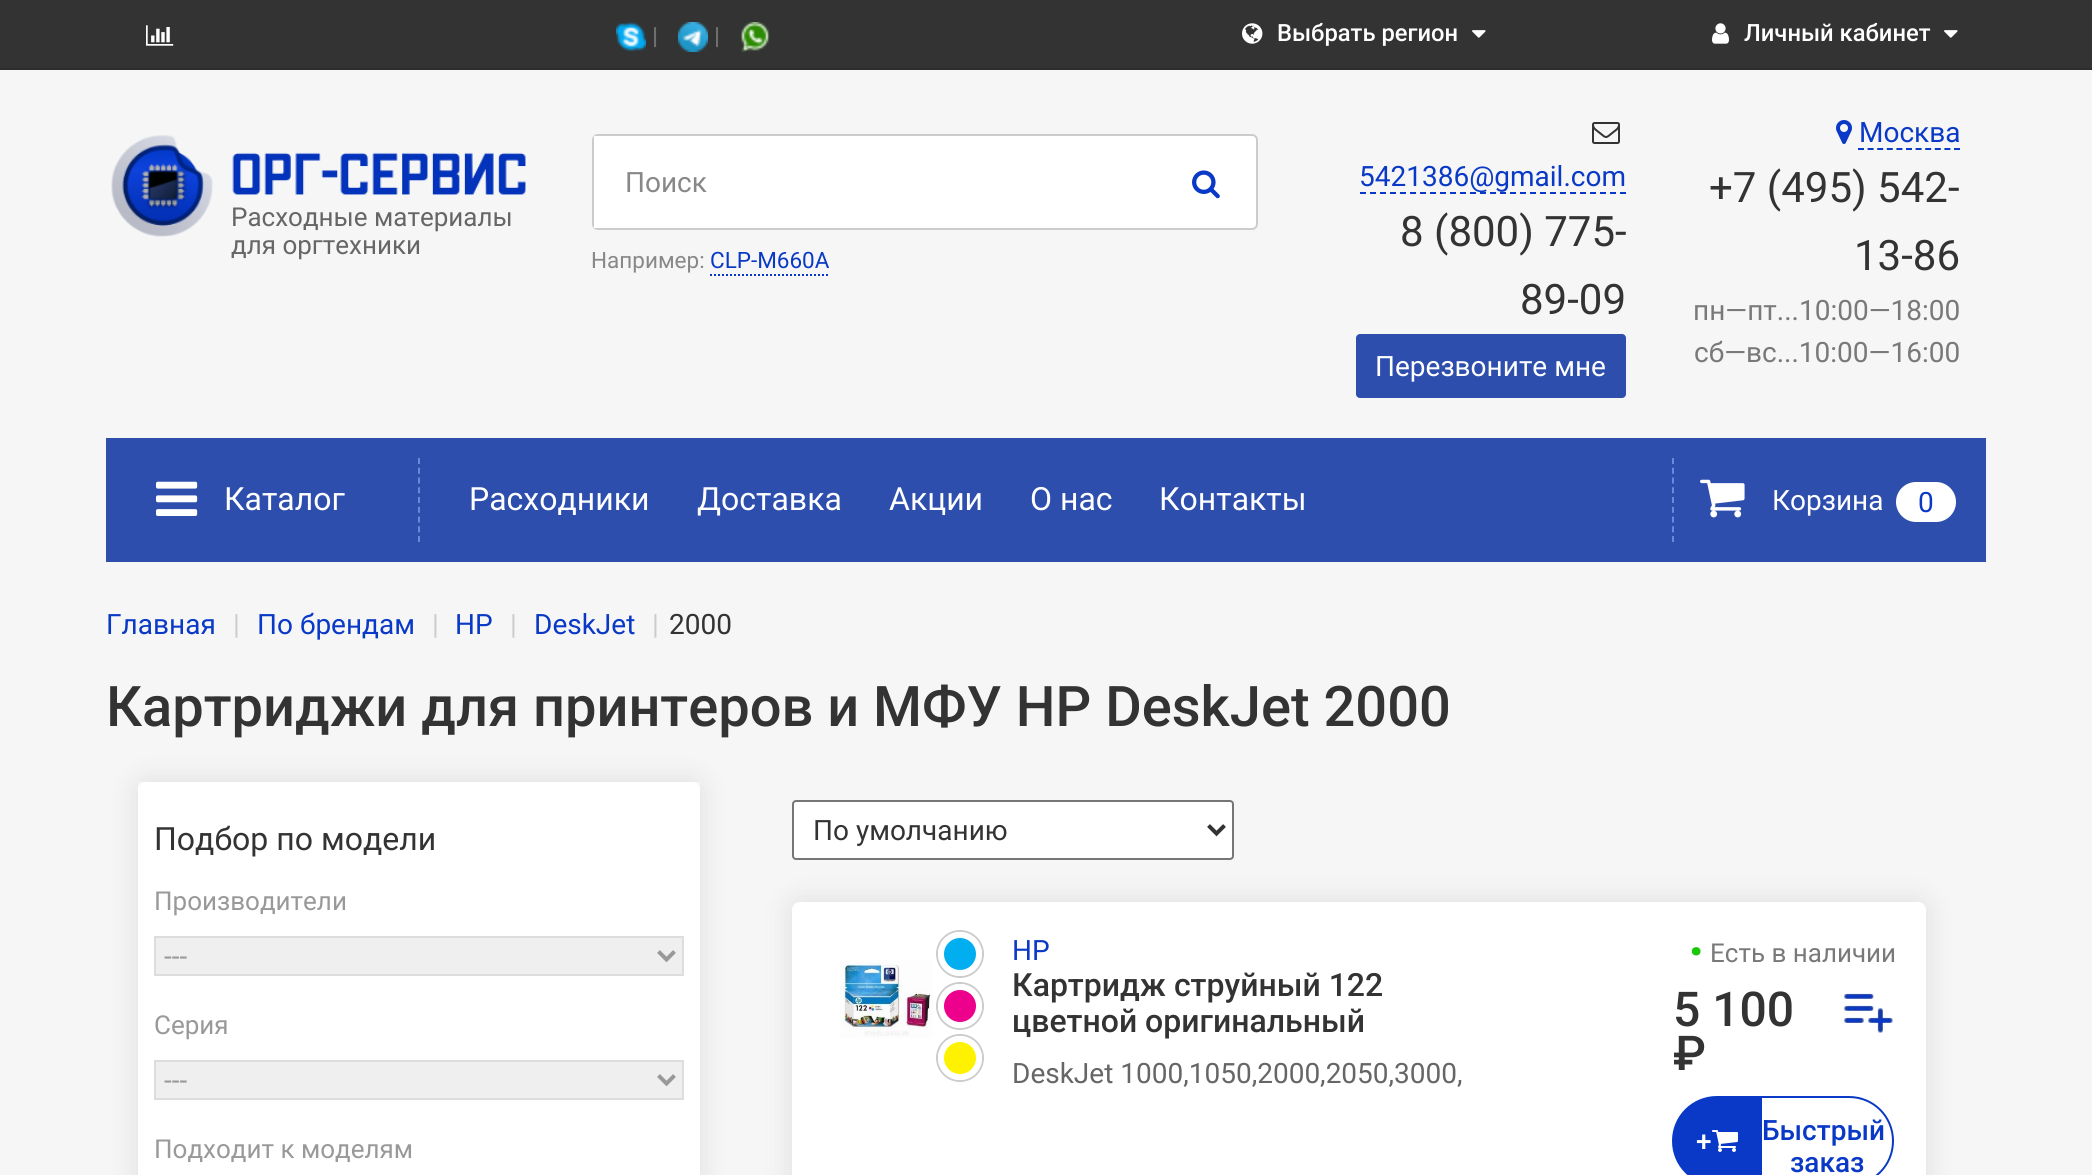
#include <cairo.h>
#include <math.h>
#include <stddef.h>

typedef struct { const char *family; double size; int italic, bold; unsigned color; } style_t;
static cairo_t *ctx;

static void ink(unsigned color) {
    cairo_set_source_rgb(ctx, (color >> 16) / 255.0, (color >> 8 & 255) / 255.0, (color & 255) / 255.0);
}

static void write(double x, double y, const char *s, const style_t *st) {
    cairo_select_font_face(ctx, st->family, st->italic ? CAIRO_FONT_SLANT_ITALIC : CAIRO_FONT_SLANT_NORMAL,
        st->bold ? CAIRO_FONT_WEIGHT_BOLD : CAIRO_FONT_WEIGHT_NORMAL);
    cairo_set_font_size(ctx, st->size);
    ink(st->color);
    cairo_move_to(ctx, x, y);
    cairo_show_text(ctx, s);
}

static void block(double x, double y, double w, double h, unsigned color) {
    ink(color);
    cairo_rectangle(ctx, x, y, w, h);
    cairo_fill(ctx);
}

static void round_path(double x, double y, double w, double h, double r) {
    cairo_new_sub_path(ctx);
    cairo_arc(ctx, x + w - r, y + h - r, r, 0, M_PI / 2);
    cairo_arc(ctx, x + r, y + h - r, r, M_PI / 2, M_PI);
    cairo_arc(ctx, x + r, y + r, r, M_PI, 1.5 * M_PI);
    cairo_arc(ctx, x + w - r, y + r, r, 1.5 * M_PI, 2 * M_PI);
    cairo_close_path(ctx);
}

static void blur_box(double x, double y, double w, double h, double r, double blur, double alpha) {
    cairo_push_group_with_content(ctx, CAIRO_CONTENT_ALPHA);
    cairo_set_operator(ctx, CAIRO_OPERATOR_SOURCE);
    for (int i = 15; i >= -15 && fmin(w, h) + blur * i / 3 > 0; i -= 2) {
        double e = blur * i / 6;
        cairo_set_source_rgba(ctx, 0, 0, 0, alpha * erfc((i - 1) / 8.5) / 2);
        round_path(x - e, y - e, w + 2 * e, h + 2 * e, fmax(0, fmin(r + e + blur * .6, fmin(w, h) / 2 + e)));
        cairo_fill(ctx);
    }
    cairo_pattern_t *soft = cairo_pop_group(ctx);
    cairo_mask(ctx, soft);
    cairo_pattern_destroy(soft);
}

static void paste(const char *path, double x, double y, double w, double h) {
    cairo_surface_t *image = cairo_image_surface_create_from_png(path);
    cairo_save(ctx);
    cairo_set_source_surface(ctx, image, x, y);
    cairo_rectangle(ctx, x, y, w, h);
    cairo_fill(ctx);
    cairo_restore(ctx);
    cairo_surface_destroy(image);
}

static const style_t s1 = {"Roboto", 23.75, 0, 1, 0x6e6e6f};
static const style_t s2 = {"Roboto Medium", 23.75, 0, 0, 0xffffff};
static const style_t s3 = {"Roboto", 26, 0, 0, 0x666666};
static const style_t s4 = {"Roboto", 28, 0, 0, 0x888888};
static const style_t s5 = {"Roboto", 22.5, 0, 0, 0x888888};
static const style_t s6 = {"Roboto", 22.5, 0, 0, 0x0939c6};
static const style_t s7 = {"Roboto", 28, 0, 0, 0x0939c6};
static const style_t s8 = {"Roboto", 42, 0, 0, 0x333333};
static const style_t s9 = {"Roboto", 28, 0, 0, 0xffffff};
static const style_t s10 = {"Roboto", 28, 0, 0, 0x797979};
static const style_t s11 = {"Roboto", 32, 0, 0, 0xffffff};
static const style_t s12 = {"Roboto", 28, 0, 0, 0xcccccc};
static const style_t s13 = {"Roboto", 28, 0, 0, 0x333333};
static const style_t s14 = {"Roboto Medium", 56, 0, 0, 0x333333};
static const style_t s15 = {"Roboto", 32, 0, 0, 0x333333};
static const style_t s16 = {"Roboto", 26, 0, 0, 0x999999};
static const style_t s17 = {"Roboto", 28, 0, 0, 0x999999};
static const style_t s18 = {"Roboto Medium", 32, 0, 0, 0x333333};
static const style_t s19 = {"Roboto", 28, 0, 0, 0x666666};
static const style_t s20 = {"Roboto", 55, 0, 1, 0x1bc609};
static const style_t s21 = {"Roboto", 26, 0, 0, 0x797979};
static const style_t s22 = {"Roboto Medium", 48, 0, 0, 0x333333};
static const style_t s23 = {"Roboto Medium", 28, 0, 0, 0xffffff};
static const style_t s24 = {"Roboto Medium", 28, 0, 0, 0x0939c6};

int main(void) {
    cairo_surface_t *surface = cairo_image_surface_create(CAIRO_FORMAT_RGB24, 2092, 1175);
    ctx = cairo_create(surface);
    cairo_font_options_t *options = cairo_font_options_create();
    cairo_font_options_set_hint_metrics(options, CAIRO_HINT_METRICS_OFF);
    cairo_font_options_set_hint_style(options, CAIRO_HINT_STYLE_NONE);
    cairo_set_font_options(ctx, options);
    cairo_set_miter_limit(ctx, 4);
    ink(0xf6f6f6);
    cairo_paint(ctx);
    block(0, 0, 2092, 68, 0x333333);
    block(0, 68, 2092, 2, 0x2d2d2d);
    paste("pic1.png", 146, 25, 28, 21);
    paste("pic2.png", 616, 22, 30, 30);
    write(652, 44, "|", &s1);
    paste("pic3.png", 678, 22, 30, 30);
    write(714, 44, "|", &s1);
    paste("pic4.png", 740, 22, 30, 30);
    paste("pic5.png", 1242, 23, 21, 21);
    write(1277, 41, "Выбрать регион", &s2);
    paste("pic6.png", 1472, 30, 14, 8);
    paste("pic7.png", 1712, 23, 17, 21);
    write(1744, 41, "Личный кабинет", &s2);
    paste("pic6.png", 1944, 30, 14, 8);
    paste("pic8.png", 111, 135, 415, 102);
    write(231, 226, "Расходные материалы", &s3);
    write(231, 254, "для оргтехники", &s3);
    ink(0xffffff);
    round_path(593, 135, 664, 94, 5);
    cairo_fill_preserve(ctx);
    ink(0xcccccc);
    cairo_stroke(ctx);
    block(594, 136, 4, 92, 0xffffff);
    write(625, 192, "Поиск", &s4);
    paste("pic9.png", 1192, 170, 28, 29);
    write(591, 268, "Например:", &s5);
    write(710, 268, "CLP-M660A", &s6);
    cairo_new_path(ctx);
    cairo_move_to(ctx, 710, 275);
    cairo_line_to(ctx, 828, 275);
    cairo_set_dash(ctx, (double[]){2, 2}, 2, 0);
    cairo_stroke(ctx);
    paste("pic10.png", 1592, 122, 28, 22);
    cairo_new_path(ctx);
    cairo_move_to(ctx, 1360, 193);
    cairo_line_to(ctx, 1626, 193);
    cairo_set_dash(ctx, (double[]){6, 4}, 2, 0);
    cairo_stroke(ctx);
    write(1359, 186, "5421386@gmail.com", &s7);
    write(1400, 246, "8 (800) 775-", &s8);
    write(1520, 314, "89-09", &s8);
    ink(0x2e4ead);
    round_path(1356, 334, 270, 64, 4);
    cairo_fill(ctx);
    write(1375, 376, "Перезвоните мне", &s9);
    paste("pic11.png", 1836, 120, 16, 24);
    write(1859, 142, "Москва", &s7);
    cairo_new_path(ctx);
    cairo_move_to(ctx, 1858, 149);
    cairo_line_to(ctx, 1960, 149);
    cairo_set_dash(ctx, (double[]){6, 3.6}, 2, 0);
    cairo_stroke(ctx);
    write(1709, 202, "+7 (495) 542-", &s8);
    write(1854, 270, "13-86", &s8);
    write(1693, 320, "пн—пт...10:00—18:00", &s10);
    write(1694, 362, "сб—вс...10:00—16:00", &s10);
    block(106, 438, 1880, 124, 0x2e4ead);
    cairo_new_path(ctx);
    cairo_move_to(ctx, 419, 458);
    cairo_line_to(ctx, 419, 542);
    ink(0x6b88dd);
    cairo_set_dash(ctx, (double[]){6, 3.76}, 2, 0);
    cairo_stroke(ctx);
    paste("pic12.png", 156, 481, 42, 35);
    write(224, 510, "Каталог", &s11);
    write(469, 510, "Расходники", &s11);
    write(697, 510, "Доставка", &s11);
    write(889, 510, "Акции", &s11);
    write(1030, 510, "О нас", &s11);
    write(1159, 510, "Контакты", &s11);
    cairo_new_path(ctx);
    cairo_move_to(ctx, 1673, 458);
    cairo_line_to(ctx, 1673, 542);
    ink(0x6b88dd);
    cairo_stroke(ctx);
    paste("pic13.png", 1700, 479, 45, 39);
    write(1772, 510, "Корзина", &s9);
    round_path(1896, 482, 60, 40, 20);
    cairo_fill(ctx);
    write(1918, 512, "0", &s7);
    write(106, 634, "Главная", &s7);
    write(233, 634, "|", &s12);
    write(257, 634, "По брендам", &s7);
    write(432, 634, "|", &s12);
    write(455, 634, "HP", &s7);
    write(510, 634, "|", &s12);
    write(534, 634, "DeskJet", &s7);
    write(652, 634, "|", &s12);
    write(669, 634, "2000", &s13);
    write(106, 726, "Картриджи для принтеров и МФУ HP DeskJet 2000", &s14);
    block(138, 782, 562, 393, 0xffffff);
    cairo_save(ctx);
    cairo_set_fill_rule(ctx, CAIRO_FILL_RULE_EVEN_ODD);
    cairo_new_path(ctx);
    cairo_move_to(ctx, 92, 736);
    cairo_line_to(ctx, 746, 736);
    cairo_line_to(ctx, 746, 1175);
    cairo_line_to(ctx, 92, 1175);
    cairo_close_path(ctx);
    cairo_move_to(ctx, 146, 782);
    cairo_line_to(ctx, 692, 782);
    cairo_curve_to(ctx, 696.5, 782, 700, 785.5, 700, 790);
    cairo_line_to(ctx, 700, 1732);
    cairo_curve_to(ctx, 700, 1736.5, 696.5, 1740, 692, 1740);
    cairo_line_to(ctx, 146, 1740);
    cairo_curve_to(ctx, 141.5, 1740, 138, 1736.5, 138, 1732);
    cairo_line_to(ctx, 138, 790);
    cairo_curve_to(ctx, 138, 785.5, 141.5, 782, 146, 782);
    cairo_close_path(ctx);
    cairo_clip(ctx);
    ink(0x000000);
    blur_box(138, 782, 562, 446, 8, 15, 0.1);
    cairo_restore(ctx);
    write(154, 850, "Подбор по модели", &s15);
    write(154, 910, "Производители", &s16);
    ink(0xefefef);
    cairo_rectangle(ctx, 155, 937, 528, 38);
    cairo_fill_preserve(ctx);
    ink(0xdddddd);
    cairo_set_dash(ctx, NULL, 0, 0);
    cairo_stroke(ctx);
    cairo_new_path(ctx);
    cairo_move_to(ctx, 658.5, 951.5);
    cairo_line_to(ctx, 666.5, 959.5);
    cairo_line_to(ctx, 674.5, 951.5);
    ink(0x999999);
    cairo_set_line_width(ctx, 4);
    cairo_stroke(ctx);
    write(164, 966, "---", &s17);
    write(154, 1034, "Серия", &s16);
    ink(0xefefef);
    cairo_rectangle(ctx, 155, 1061, 528, 38);
    cairo_fill_preserve(ctx);
    ink(0xdddddd);
    cairo_set_line_width(ctx, 2);
    cairo_stroke(ctx);
    cairo_new_path(ctx);
    cairo_move_to(ctx, 658.5, 1075.5);
    cairo_line_to(ctx, 666.5, 1083.5);
    cairo_line_to(ctx, 674.5, 1075.5);
    ink(0x999999);
    cairo_set_line_width(ctx, 4);
    cairo_stroke(ctx);
    write(164, 1090, "---", &s17);
    write(154, 1158, "Подходит к моделям", &s16);
    ink(0xffffff);
    round_path(793, 801, 440, 58, 3);
    cairo_fill_preserve(ctx);
    ink(0x767676);
    cairo_set_line_width(ctx, 2);
    cairo_stroke(ctx);
    cairo_new_path(ctx);
    cairo_move_to(ctx, 1208.5, 825.5);
    cairo_line_to(ctx, 1216.5, 833.5);
    cairo_line_to(ctx, 1224.5, 825.5);
    ink(0x333333);
    cairo_set_line_width(ctx, 4);
    cairo_stroke(ctx);
    write(813, 840, "По умолчанию", &s13);
    ink(0x000000);
    blur_box(792, 902, 1134, 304, 8, 15, 0.1);
    ink(0xffffff);
    round_path(792, 902, 1134, 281, 8);
    cairo_fill(ctx);
    cairo_arc(ctx, 960, 954, 23, 0, 2 * M_PI);
    ink(0xcccccc);
    cairo_set_line_width(ctx, 2);
    cairo_stroke(ctx);
    ink(0x01aef0);
    cairo_arc(ctx, 960, 954, 19, 0, 2 * M_PI);
    cairo_fill_preserve(ctx);
    ink(0xffffff);
    cairo_set_line_width(ctx, 6);
    cairo_stroke(ctx);
    paste("pic14.png", 840, 960, 93, 78);
    cairo_arc(ctx, 960, 1006, 23, 0, 2 * M_PI);
    ink(0xcccccc);
    cairo_set_line_width(ctx, 2);
    cairo_stroke(ctx);
    ink(0xed008c);
    cairo_arc(ctx, 960, 1006, 19, 0, 2 * M_PI);
    cairo_fill_preserve(ctx);
    ink(0xffffff);
    cairo_set_line_width(ctx, 6);
    cairo_stroke(ctx);
    cairo_arc(ctx, 960, 1058, 23, 0, 2 * M_PI);
    ink(0xcccccc);
    cairo_set_line_width(ctx, 2);
    cairo_stroke(ctx);
    ink(0xfef200);
    cairo_arc(ctx, 960, 1058, 19, 0, 2 * M_PI);
    cairo_fill_preserve(ctx);
    ink(0xffffff);
    cairo_set_line_width(ctx, 6);
    cairo_stroke(ctx);
    write(1012, 960, "HP", &s7);
    write(1012, 996, "Картридж струйный 122", &s18);
    write(1012, 1032, "цветной оригинальный", &s18);
    write(1012, 1083, "DeskJet 1000,1050,2000,2050,3000,", &s19);
    write(1688, 970, "·", &s20);
    write(1710, 962, "Есть в наличии", &s21);
    write(1673, 1026, "5 100", &s22);
    write(1673, 1070, "₽", &s22);
    paste("pic15.png", 1844, 993, 49, 40);
    ink(0x0939c6);
    cairo_new_path(ctx);
    cairo_move_to(ctx, 1717, 1097);
    cairo_line_to(ctx, 1761, 1097);
    cairo_line_to(ctx, 1761, 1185);
    cairo_line_to(ctx, 1717, 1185);
    cairo_curve_to(ctx, 1692.5, 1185, 1673, 1165.5, 1673, 1141);
    cairo_curve_to(ctx, 1673, 1116.5, 1692.5, 1097, 1717, 1097);
    cairo_close_path(ctx);
    cairo_fill_preserve(ctx);
    cairo_set_line_width(ctx, 2);
    cairo_stroke(ctx);
    write(1696, 1151, "+", &s23);
    paste("pic16.png", 1712, 1130, 26, 22);
    ink(0x0939c6);
    cairo_set_fill_rule(ctx, CAIRO_FILL_RULE_EVEN_ODD);
    cairo_new_path(ctx);
    cairo_move_to(ctx, 1762, 1096);
    cairo_line_to(ctx, 1849, 1096);
    cairo_curve_to(ctx, 1874, 1096, 1894, 1116, 1894, 1141);
    cairo_curve_to(ctx, 1894, 1166, 1874, 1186, 1849, 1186);
    cairo_line_to(ctx, 1762, 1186);
    cairo_close_path(ctx);
    cairo_move_to(ctx, 1762, 1098);
    cairo_line_to(ctx, 1849, 1098);
    cairo_curve_to(ctx, 1873, 1098, 1892, 1117, 1892, 1141);
    cairo_curve_to(ctx, 1892, 1165, 1873, 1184, 1849, 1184);
    cairo_line_to(ctx, 1762, 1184);
    cairo_close_path(ctx);
    cairo_fill(ctx);
    write(1762, 1140, "Быстрый", &s24);
    write(1790, 1172, "заказ", &s24);
    cairo_surface_write_to_png(surface, "screenshot.png");
    cairo_font_options_destroy(options);
    cairo_destroy(ctx);
    cairo_surface_destroy(surface);
    return 0;
}
